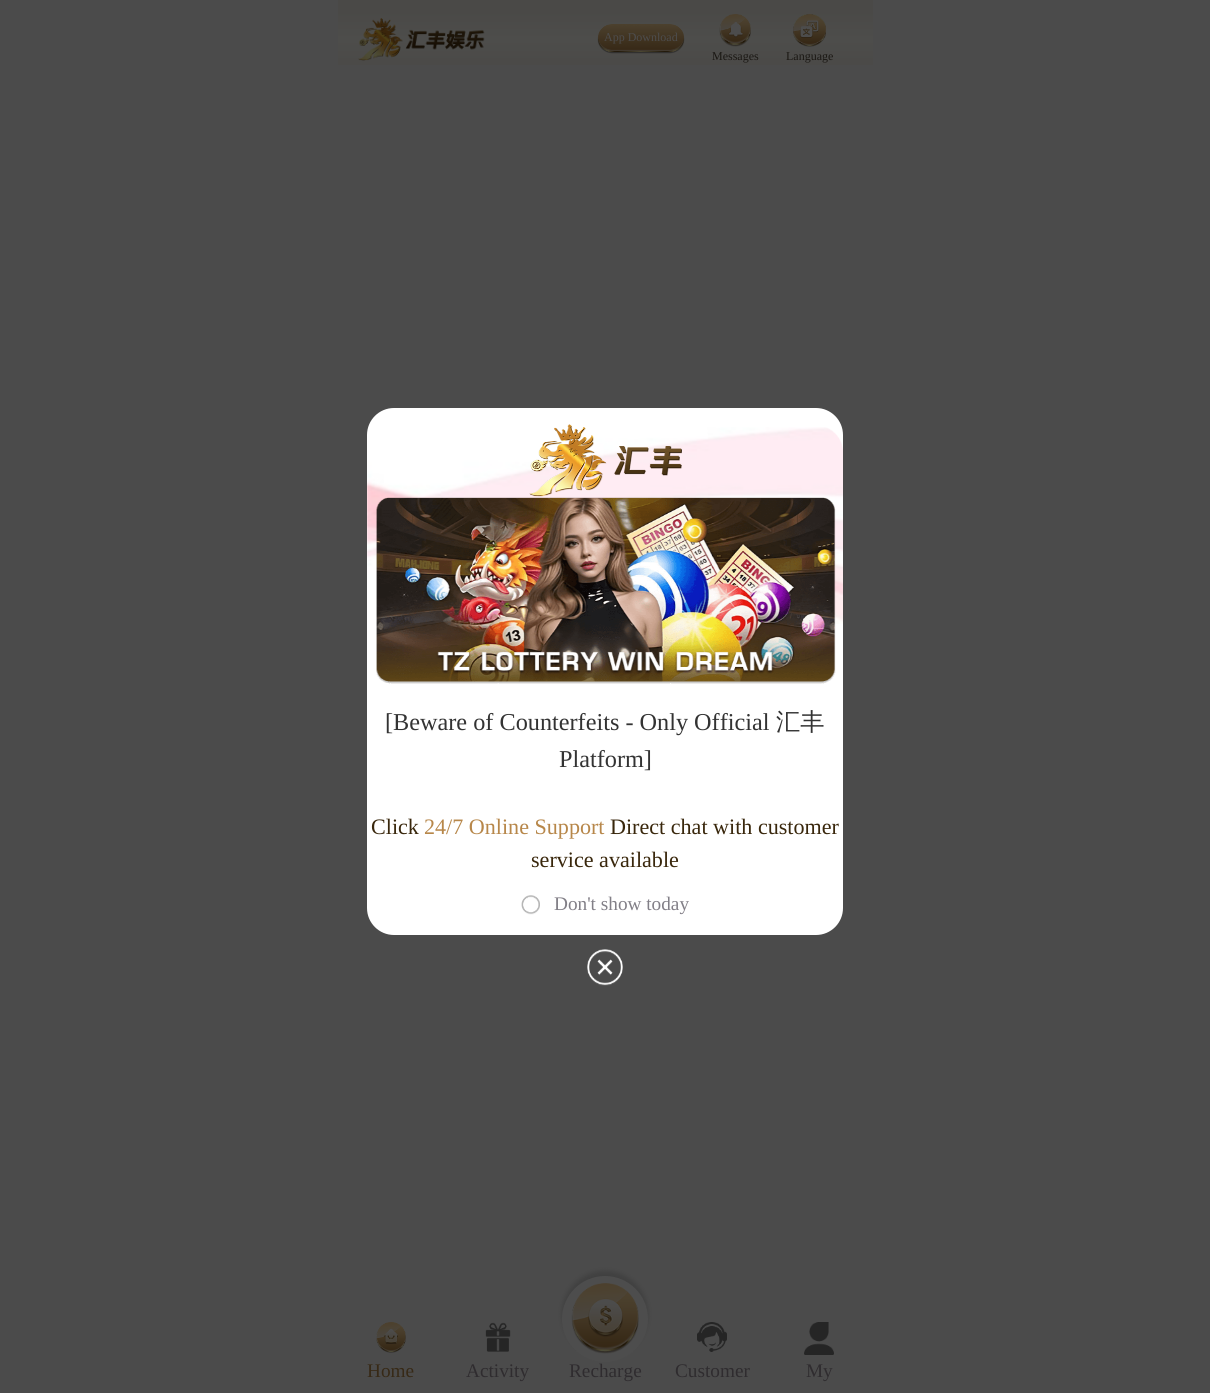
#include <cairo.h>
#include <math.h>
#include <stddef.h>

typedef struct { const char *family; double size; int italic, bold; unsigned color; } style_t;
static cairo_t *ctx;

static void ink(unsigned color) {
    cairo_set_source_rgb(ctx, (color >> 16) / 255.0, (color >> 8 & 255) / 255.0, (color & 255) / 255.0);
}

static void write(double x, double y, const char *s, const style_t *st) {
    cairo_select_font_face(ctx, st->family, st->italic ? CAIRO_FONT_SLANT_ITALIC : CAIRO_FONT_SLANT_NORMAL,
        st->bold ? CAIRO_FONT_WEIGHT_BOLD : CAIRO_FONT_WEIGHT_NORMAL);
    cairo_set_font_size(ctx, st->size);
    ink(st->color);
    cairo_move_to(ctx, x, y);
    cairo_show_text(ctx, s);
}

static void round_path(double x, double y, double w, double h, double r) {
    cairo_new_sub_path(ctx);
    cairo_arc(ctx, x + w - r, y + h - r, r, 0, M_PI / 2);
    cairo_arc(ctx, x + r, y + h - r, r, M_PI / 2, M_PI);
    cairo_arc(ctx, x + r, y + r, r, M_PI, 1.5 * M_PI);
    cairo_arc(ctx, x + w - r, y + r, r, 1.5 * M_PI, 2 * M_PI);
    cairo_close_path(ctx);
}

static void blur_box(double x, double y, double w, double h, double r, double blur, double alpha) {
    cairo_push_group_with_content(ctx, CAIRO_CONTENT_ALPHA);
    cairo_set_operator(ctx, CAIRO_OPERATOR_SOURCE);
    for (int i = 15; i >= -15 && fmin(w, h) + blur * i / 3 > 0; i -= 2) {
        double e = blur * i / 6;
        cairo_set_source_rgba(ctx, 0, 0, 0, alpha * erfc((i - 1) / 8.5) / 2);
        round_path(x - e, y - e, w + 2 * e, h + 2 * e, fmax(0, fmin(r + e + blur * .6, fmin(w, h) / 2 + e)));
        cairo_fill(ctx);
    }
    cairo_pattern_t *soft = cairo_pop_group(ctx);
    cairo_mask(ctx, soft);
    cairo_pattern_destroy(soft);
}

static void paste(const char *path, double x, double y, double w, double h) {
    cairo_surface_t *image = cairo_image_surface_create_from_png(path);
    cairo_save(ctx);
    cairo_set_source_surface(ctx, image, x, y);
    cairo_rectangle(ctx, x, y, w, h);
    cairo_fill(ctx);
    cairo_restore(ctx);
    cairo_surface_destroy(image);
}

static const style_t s1 = {"Liberation Serif", 12, 0, 0, 0x4d4d4d};
static const style_t s2 = {"Liberation Serif", 12, 0, 0, 0x1a1713};
static const style_t s3 = {"Liberation Serif", 19.25, 0, 0, 0x372916};
static const style_t s4 = {"Liberation Serif", 19.25, 0, 0, 0x2f2c2f};
static const style_t s5 = {"Liberation Serif", 24.25, 0, 0, 0x333333};
static const style_t s6 = {"WenQuanYi Zen Hei Medium", 24.25, 0, 0, 0x333333};
static const style_t s7 = {"Liberation Serif", 22.1, 0, 0, 0x39270c};
static const style_t s8 = {"Liberation Serif", 22.1, 0, 0, 0xb7874a};
static const style_t s9 = {"Liberation Serif", 19.25, 0, 0, 0x827f87};

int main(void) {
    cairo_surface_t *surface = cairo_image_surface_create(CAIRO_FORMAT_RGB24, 1210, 1393);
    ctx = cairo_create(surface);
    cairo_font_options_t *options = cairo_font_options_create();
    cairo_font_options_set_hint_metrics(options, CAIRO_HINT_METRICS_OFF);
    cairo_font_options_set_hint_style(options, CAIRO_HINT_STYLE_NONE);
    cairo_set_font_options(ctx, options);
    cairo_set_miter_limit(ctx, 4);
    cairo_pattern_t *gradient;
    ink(0x4b4b4b);
    cairo_paint(ctx);
    gradient = cairo_pattern_create_linear(606, 0, 606, 79);
    cairo_pattern_add_color_stop_rgba(gradient, 0.13, 0.29, 0.286, 0.278, 1);
    cairo_pattern_add_color_stop_rgba(gradient, 0.5, 0.302, 0.302, 0.294, 1);
    cairo_pattern_add_color_stop_rgba(gradient, 0.79, 0.294, 0.29, 0.282, 1);
    cairo_pattern_add_color_stop_rgba(gradient, 1, 0.302, 0.298, 0.294, 1);
    cairo_set_source(ctx, gradient);
    cairo_pattern_destroy(gradient);
    cairo_rectangle(ctx, 338, 0, 535, 65);
    cairo_fill(ctx);
    paste("pic1.png", 358, 18, 127, 43);
    paste("pic2.png", 597, 24, 88, 30);
    write(604, 41, "App Download", &s1);
    paste("pic3.png", 719, 14, 32, 33);
    write(712, 60, "Messages", &s2);
    paste("pic4.png", 793, 14, 33, 33);
    write(786, 60, "Language", &s2);
    paste("pic5.png", 376, 1322, 30, 31);
    write(367, 1377, "Home", &s3);
    paste("pic6.png", 485, 1322, 26, 30);
    write(466, 1377, "Activity", &s4);
    ink(0x000000);
    blur_box(562, 1271, 86, 86, 43, 2.5, 0.15);
    ink(0x4d4d4d);
    cairo_arc(ctx, 605, 1319, 43, 0, 2 * M_PI);
    cairo_fill(ctx);
    paste("pic7.png", 571, 1283, 68, 71);
    write(569, 1377, "Recharge", &s4);
    paste("pic8.png", 697, 1322, 30, 30);
    write(675, 1377, "Customer", &s4);
    paste("pic9.png", 804, 1322, 30, 33);
    write(806, 1377, "My", &s4);
    ink(0xffffff);
    round_path(367, 408, 476, 527, 27);
    cairo_fill(ctx);
    paste("pic11.png", 367, 427, 476, 197);
    paste("pic10.png", 529, 424, 153, 73);
    paste("pic12.png", 376, 497, 460, 187);
    write(385, 730, "[Beware of Counterfeits - Only Official", &s5);
    write(776, 730, "汇丰", &s6);
    write(559, 767, "Platform]", &s5);
    write(371, 834, "Click", &s7);
    write(424, 834, "24/7 Online Support", &s8);
    write(610, 834, "Direct chat with customer", &s7);
    write(531, 867, "service available", &s7);
    paste("pic13.png", 521, 895, 19, 20);
    write(554, 910, "Don't show today", &s9);
    paste("pic14.png", 587, 949, 36, 37);
    cairo_surface_write_to_png(surface, "screenshot.png");
    cairo_font_options_destroy(options);
    cairo_destroy(ctx);
    cairo_surface_destroy(surface);
    return 0;
}
